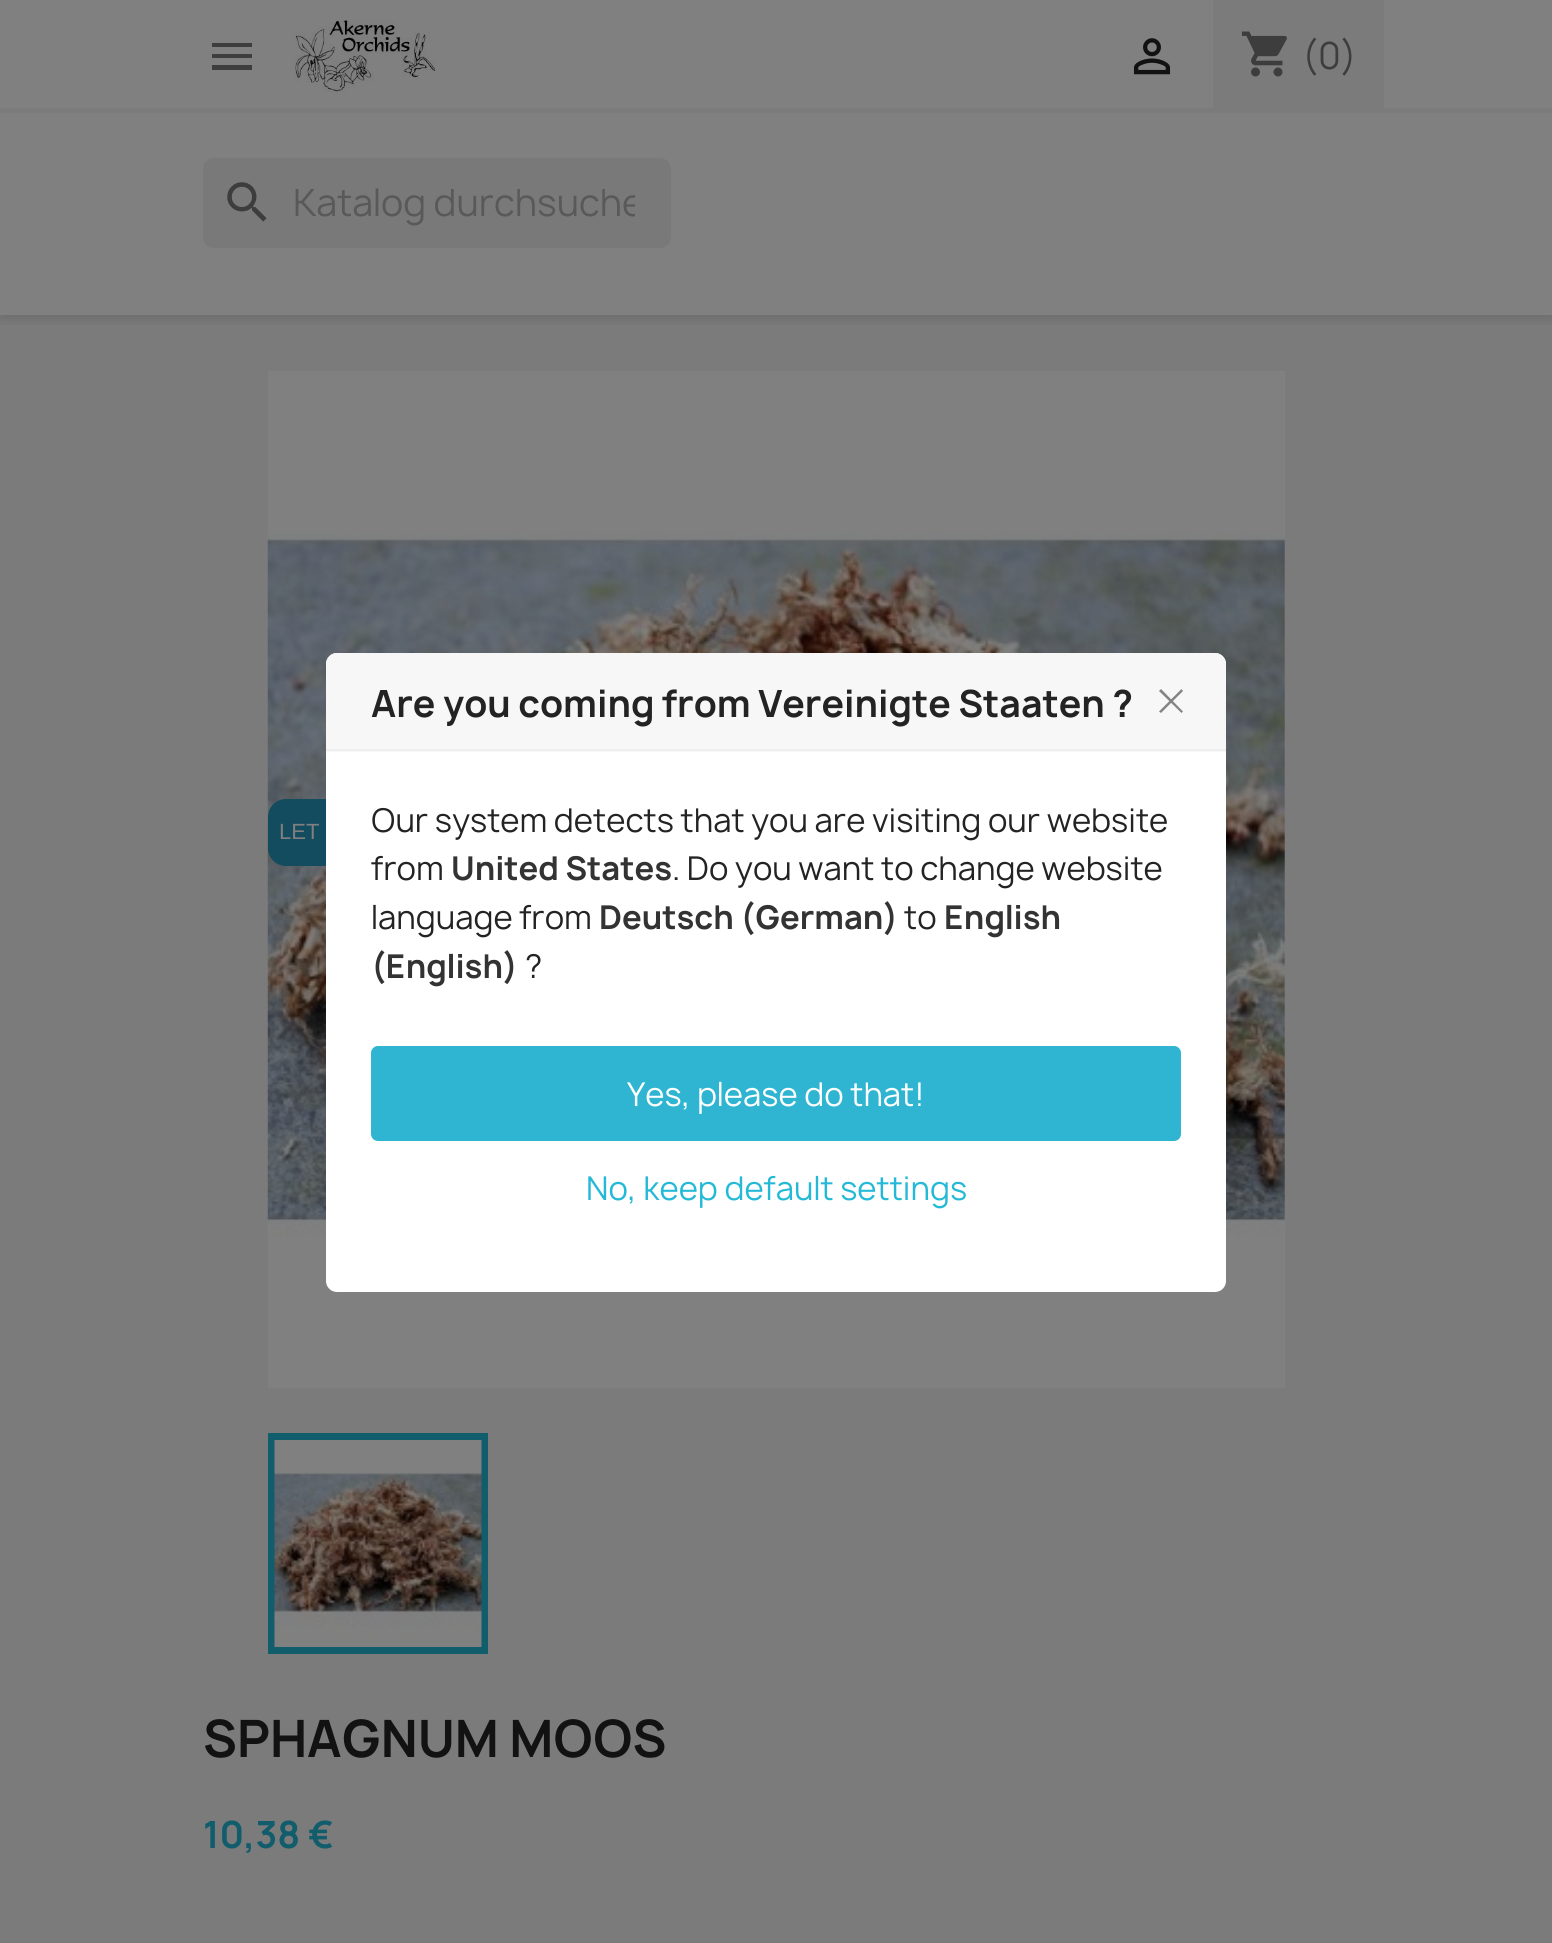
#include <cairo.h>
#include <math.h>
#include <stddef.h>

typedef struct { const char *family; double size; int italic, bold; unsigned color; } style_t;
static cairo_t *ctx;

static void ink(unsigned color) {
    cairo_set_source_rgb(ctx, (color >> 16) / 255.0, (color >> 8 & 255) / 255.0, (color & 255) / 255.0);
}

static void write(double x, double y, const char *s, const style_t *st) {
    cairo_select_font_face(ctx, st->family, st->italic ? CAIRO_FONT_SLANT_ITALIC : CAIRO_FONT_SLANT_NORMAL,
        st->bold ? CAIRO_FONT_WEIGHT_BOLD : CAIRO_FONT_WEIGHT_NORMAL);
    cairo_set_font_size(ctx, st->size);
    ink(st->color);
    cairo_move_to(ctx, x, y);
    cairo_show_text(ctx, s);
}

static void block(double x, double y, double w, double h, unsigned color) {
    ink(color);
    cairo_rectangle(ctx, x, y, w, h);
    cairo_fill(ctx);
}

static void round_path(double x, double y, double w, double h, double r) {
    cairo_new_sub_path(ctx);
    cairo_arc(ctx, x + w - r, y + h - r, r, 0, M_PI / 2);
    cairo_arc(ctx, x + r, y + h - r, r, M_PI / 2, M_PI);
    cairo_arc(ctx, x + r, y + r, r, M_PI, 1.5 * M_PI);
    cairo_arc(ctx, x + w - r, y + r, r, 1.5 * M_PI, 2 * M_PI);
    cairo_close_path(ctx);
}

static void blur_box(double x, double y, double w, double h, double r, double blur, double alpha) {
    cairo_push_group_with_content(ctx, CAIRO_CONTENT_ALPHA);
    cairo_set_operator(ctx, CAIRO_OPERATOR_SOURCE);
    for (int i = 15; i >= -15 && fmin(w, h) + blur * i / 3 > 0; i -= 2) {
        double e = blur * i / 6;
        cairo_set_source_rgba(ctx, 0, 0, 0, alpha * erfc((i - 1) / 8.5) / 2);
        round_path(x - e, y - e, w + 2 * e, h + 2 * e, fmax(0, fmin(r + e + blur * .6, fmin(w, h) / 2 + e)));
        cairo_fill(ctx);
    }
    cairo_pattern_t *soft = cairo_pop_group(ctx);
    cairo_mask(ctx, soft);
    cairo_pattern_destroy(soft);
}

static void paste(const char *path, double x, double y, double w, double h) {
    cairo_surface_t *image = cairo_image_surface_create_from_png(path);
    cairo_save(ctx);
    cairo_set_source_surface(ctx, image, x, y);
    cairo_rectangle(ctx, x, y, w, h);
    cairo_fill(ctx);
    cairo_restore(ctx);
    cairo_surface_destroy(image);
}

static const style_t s1 = {"Manrope", 36, 0, 0, 0x3d3d3d};
static const style_t s2 = {"Manrope", 36, 0, 0, 0x595959};
static const style_t s3 = {"Liberation Sans", 22, 0, 0, 0x808080};
static const style_t s4 = {"Manrope", 49.5, 0, 1, 0x121212};
static const style_t s5 = {"Manrope", 36, 0, 1, 0x125d6c};
static const style_t s6 = {"Manrope", 36, 0, 1, 0x232323};
static const style_t s7 = {"Manrope", 31.5, 0, 0, 0x232323};
static const style_t s8 = {"Manrope", 31.5, 0, 1, 0x333333};
static const style_t s9 = {"Manrope", 31.5, 0, 0, 0xffffff};
static const style_t s10 = {"Manrope", 31.5, 0, 0, 0x24b9d7};

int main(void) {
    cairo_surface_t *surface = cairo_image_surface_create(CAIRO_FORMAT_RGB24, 1552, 1943);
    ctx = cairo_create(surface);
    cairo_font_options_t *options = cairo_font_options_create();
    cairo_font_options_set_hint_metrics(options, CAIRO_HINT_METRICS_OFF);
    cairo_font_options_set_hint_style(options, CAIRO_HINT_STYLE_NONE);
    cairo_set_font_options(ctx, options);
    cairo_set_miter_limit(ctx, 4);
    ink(0x808080);
    cairo_paint(ctx);
    block(0, 315, 1552, 1628, 0x7b7b7b);
    cairo_save(ctx);
    cairo_rectangle(ctx, 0, 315, 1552, 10);
    cairo_clip(ctx);
    ink(0x000000);
    blur_box(0, 5, 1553, 315, 0, 5.5, 0.11);
    cairo_restore(ctx);
    block(0, 108, 1552, 5, 0x7b7b7b);
    ink(0x3d3d3d);
    cairo_new_path(ctx);
    cairo_move_to(ctx, 212, 43);
    cairo_line_to(ctx, 252, 43);
    cairo_line_to(ctx, 252, 47);
    cairo_line_to(ctx, 212, 47);
    cairo_close_path(ctx);
    cairo_move_to(ctx, 212, 58);
    cairo_line_to(ctx, 212, 54);
    cairo_line_to(ctx, 252, 54);
    cairo_line_to(ctx, 252, 58);
    cairo_close_path(ctx);
    cairo_move_to(ctx, 212, 70);
    cairo_line_to(ctx, 212, 65);
    cairo_line_to(ctx, 252, 65);
    cairo_line_to(ctx, 252, 70);
    cairo_close_path(ctx);
    cairo_fill(ctx);
    paste("pic1.png", 295, 20, 142, 72);
    paste("pic2.png", 1133, 38, 38, 37);
    block(1213, 0, 171, 108, 0x7b7b7b);
    paste("pic3.png", 1241, 31, 46, 46);
    write(1302, 69, "(0)", &s1);
    ink(0x797979);
    round_path(203, 158, 468, 90, 11);
    cairo_fill(ctx);
    paste("pic4.png", 227, 182, 40, 40);
    cairo_save(ctx);
    cairo_rectangle(ctx, 293, 173, 342, 61);
    cairo_clip(ctx);
    write(293, 216, "Katalog durchsuche", &s2);
    cairo_restore(ctx);
    block(268, 371, 1017, 1017, 0x808080);
    paste("pic5.png", 267, 533, 1018, 703);
    ink(0x134b5f);
    round_path(268, 799, 207, 67, 18);
    cairo_fill(ctx);
    write(279, 839, "LET", &s3);
    cairo_rectangle(ctx, 271.5, 1436.5, 213, 214);
    ink(0x125d6c);
    cairo_set_line_width(ctx, 7);
    cairo_stroke(ctx);
    paste("pic6.png", 274, 1440, 208, 207);
    write(203, 1757, "SPHAGNUM MOOS", &s4);
    write(203, 1848, "10,38 €", &s5);
    ink(0xffffff);
    round_path(326, 653, 900, 639, 11);
    cairo_fill(ctx);
    ink(0xf7f7f7);
    cairo_new_path(ctx);
    cairo_move_to(ctx, 337, 653);
    cairo_line_to(ctx, 1215, 653);
    cairo_curve_to(ctx, 1221, 653, 1226, 658, 1226, 664);
    cairo_line_to(ctx, 1226, 752);
    cairo_line_to(ctx, 326, 752);
    cairo_line_to(ctx, 326, 664);
    cairo_curve_to(ctx, 326, 658, 331, 653, 337, 653);
    cairo_close_path(ctx);
    cairo_fill(ctx);
    block(326, 749, 900, 2, 0xeeeeee);
    write(371, 717, "Are you coming from Vereinigte Staaten ?", &s6);
    ink(0x848484);
    cairo_new_path(ctx);
    cairo_move_to(ctx, 1181.5, 689);
    cairo_line_to(ctx, 1183, 691);
    cairo_line_to(ctx, 1161, 713);
    cairo_line_to(ctx, 1159, 711.5);
    cairo_close_path(ctx);
    cairo_fill(ctx);
    cairo_new_path(ctx);
    cairo_move_to(ctx, 1159, 691);
    cairo_line_to(ctx, 1161, 689);
    cairo_line_to(ctx, 1183, 711.5);
    cairo_line_to(ctx, 1181.5, 713);
    cairo_close_path(ctx);
    cairo_fill(ctx);
    write(371, 832, "Our system detects that you are visiting our website", &s7);
    write(371, 880, "from", &s7);
    write(451, 880, "United States", &s8);
    write(672, 880, ". Do you want to change website", &s7);
    write(371, 929, "language from", &s7);
    write(599, 929, "Deutsch (German)", &s8);
    write(904, 929, "to", &s7);
    write(944, 929, "English", &s8);
    write(371, 978, "(English)", &s8);
    write(525, 978, "?", &s7);
    ink(0x2fb5d2);
    round_path(371, 1046, 810, 95, 7);
    cairo_fill(ctx);
    write(627, 1106, "Yes, please do that!", &s9);
    write(586, 1200, "No, keep default settings", &s10);
    cairo_surface_write_to_png(surface, "screenshot.png");
    cairo_font_options_destroy(options);
    cairo_destroy(ctx);
    cairo_surface_destroy(surface);
    return 0;
}
